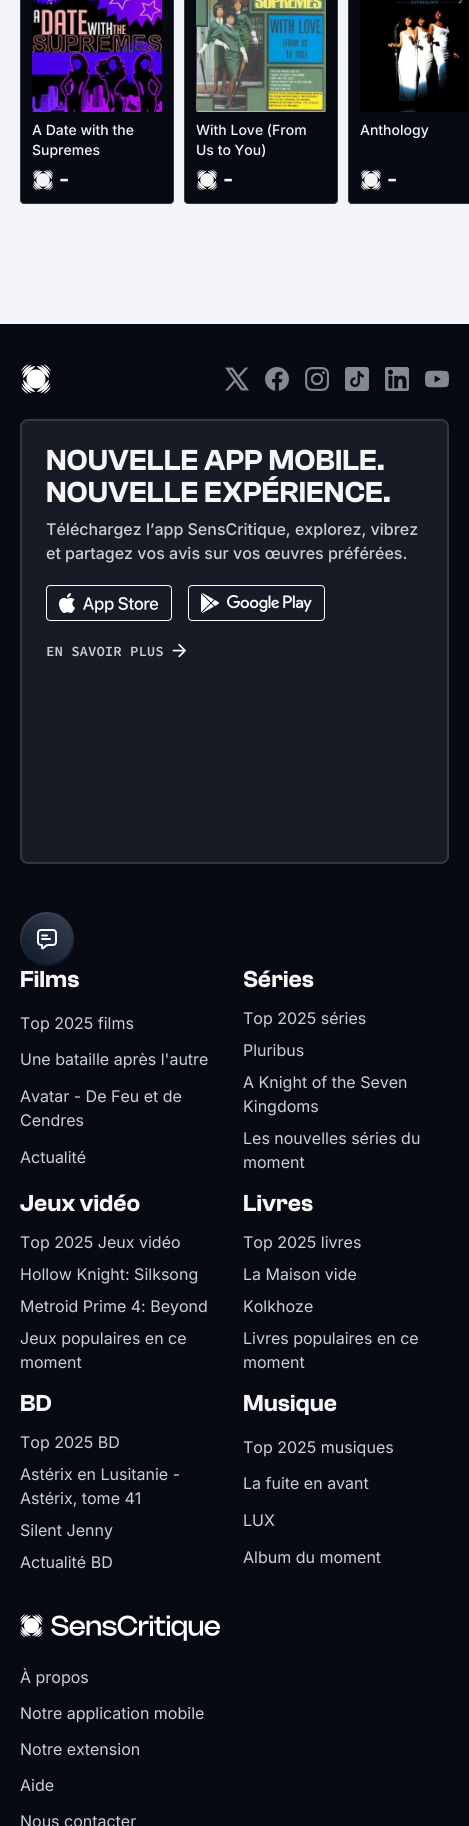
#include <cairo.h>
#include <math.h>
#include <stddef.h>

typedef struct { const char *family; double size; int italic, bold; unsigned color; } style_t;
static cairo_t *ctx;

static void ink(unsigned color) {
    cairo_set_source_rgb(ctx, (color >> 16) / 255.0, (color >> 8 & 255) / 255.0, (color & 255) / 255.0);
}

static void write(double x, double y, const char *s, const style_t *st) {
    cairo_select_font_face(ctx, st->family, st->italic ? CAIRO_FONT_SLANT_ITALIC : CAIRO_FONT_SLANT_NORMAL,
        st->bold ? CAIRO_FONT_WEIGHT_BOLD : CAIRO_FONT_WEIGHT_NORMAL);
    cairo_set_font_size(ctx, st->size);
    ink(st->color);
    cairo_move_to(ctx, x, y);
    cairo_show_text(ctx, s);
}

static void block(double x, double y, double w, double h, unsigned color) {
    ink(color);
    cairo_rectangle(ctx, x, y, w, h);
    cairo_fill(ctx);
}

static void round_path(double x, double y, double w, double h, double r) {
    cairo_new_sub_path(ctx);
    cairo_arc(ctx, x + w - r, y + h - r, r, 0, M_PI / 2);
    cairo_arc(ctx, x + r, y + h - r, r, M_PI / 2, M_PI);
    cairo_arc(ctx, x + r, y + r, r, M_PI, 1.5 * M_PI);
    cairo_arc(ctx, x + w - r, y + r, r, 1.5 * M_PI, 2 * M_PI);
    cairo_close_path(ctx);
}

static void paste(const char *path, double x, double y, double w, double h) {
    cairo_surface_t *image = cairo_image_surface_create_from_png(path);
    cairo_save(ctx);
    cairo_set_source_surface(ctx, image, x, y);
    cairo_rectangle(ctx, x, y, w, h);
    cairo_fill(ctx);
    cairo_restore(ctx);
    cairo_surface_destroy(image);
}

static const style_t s1 = {"Inter Medium", 14, 0, 0, 0xf5f5f6};
static const style_t s2 = {"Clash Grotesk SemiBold", 20, 0, 0, 0xf5f5f6};
static const style_t s3 = {"Clash Grotesk SemiBold", 30, 0, 0, 0xf5f5f6};
static const style_t s4 = {"Inter Medium", 16, 0, 0, 0xcecfd2};
static const style_t s5 = {"Source Code Pro SemiBold", 14, 0, 0, 0xcecfd2};
static const style_t s6 = {"Clash Grotesk SemiBold", 24, 0, 0, 0xf5f5f6};
static const style_t s7 = {"Inter", 16, 0, 0, 0xcecfd2};

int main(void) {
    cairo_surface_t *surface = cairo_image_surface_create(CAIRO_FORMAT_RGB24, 469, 1826);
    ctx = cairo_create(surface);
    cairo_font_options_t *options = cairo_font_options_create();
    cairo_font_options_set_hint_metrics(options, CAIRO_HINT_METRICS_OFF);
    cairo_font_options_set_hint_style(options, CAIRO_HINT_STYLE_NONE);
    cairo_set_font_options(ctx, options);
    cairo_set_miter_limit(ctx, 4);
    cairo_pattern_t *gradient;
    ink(0xf2f4f7);
    cairo_paint(ctx);
    ink(0x070a12);
    round_path(20.5, -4.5, 153, 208, 3.5);
    cairo_fill_preserve(ctx);
    ink(0x333741);
    cairo_set_line_width(ctx, 1);
    cairo_stroke(ctx);
    paste("pic1.png", 32, 0, 130, 112);
    write(32, 135, "A Date with the", &s1);
    write(32, 155, "Supremes", &s1);
    paste("pic2.png", 32, 169, 22, 22);
    write(60, 186, "-", &s2);
    ink(0x070a12);
    round_path(184.5, -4.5, 153, 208, 3.5);
    cairo_fill_preserve(ctx);
    ink(0x333741);
    cairo_stroke(ctx);
    paste("pic3.png", 196, 0, 130, 112);
    write(196, 135, "With Love (From", &s1);
    write(196, 155, "Us to You)", &s1);
    paste("pic2.png", 196, 169, 22, 22);
    write(224, 186, "-", &s2);
    ink(0x070a12);
    cairo_new_path(ctx);
    cairo_move_to(ctx, 352, -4);
    cairo_line_to(ctx, 469, -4);
    cairo_line_to(ctx, 469, 204);
    cairo_line_to(ctx, 352, 204);
    cairo_curve_to(ctx, 350, 204, 348, 202, 348, 200);
    cairo_line_to(ctx, 348, 0);
    cairo_curve_to(ctx, 348, -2, 350, -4, 352, -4);
    cairo_close_path(ctx);
    cairo_fill(ctx);
    round_path(348.5, -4.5, 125, 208, 3.5);
    ink(0x333741);
    cairo_stroke(ctx);
    paste("pic4.png", 360, 0, 109, 112);
    write(360, 135, "Anthology", &s1);
    paste("pic2.png", 360, 169, 22, 22);
    write(388, 186, "-", &s2);
    block(0, 324, 469, 1502, 0x070a12);
    paste("pic5.png", 21, 364, 30, 30);
    paste("pic6.png", 225, 367, 24, 24);
    paste("pic7.png", 265, 367, 24, 24);
    paste("pic8.png", 305, 367, 24, 24);
    paste("pic9.png", 345, 367, 24, 24);
    paste("pic10.png", 385, 367, 24, 24);
    paste("pic11.png", 425, 370, 24, 18);
    ink(0x161b26);
    round_path(21, 420, 427, 443, 7);
    cairo_fill_preserve(ctx);
    ink(0x333741);
    cairo_set_line_width(ctx, 2);
    cairo_stroke(ctx);
    write(46, 470, "NOUVELLE APP MOBILE.", &s3);
    write(46, 502, "NOUVELLE EXPÉRIENCE.", &s3);
    write(46, 535, "Téléchargez l’app SensCritique, explorez, vibrez", &s4);
    write(46, 559, "et partagez vos avis sur vos œuvres préférées.", &s4);
    round_path(46.5, 585.5, 125, 35, 3.5);
    ink(0xffffff);
    cairo_set_line_width(ctx, 1);
    cairo_stroke(ctx);
    paste("pic12.png", 59, 593, 16, 20);
    paste("pic13.png", 83, 597, 76, 16);
    round_path(188.5, 585.5, 136, 35, 3.5);
    cairo_stroke(ctx);
    paste("pic14.png", 201, 593, 18, 20);
    paste("pic15.png", 227, 595, 85, 17);
    write(46, 656, "EN SAVOIR PLUS", &s5);
    paste("pic16.png", 172, 643, 14, 15);
    gradient = cairo_pattern_create_linear(47, 912, 47, 966);
    cairo_pattern_add_color_stop_rgba(gradient, 0, 0.227, 0.263, 0.325, 1);
    cairo_pattern_add_color_stop_rgba(gradient, 1, 0.063, 0.094, 0.157, 1);
    cairo_set_source(ctx, gradient);
    cairo_pattern_destroy(gradient);
    cairo_arc(ctx, 47, 939, 27, 0, 2 * M_PI);
    cairo_fill(ctx);
    gradient = cairo_pattern_create_linear(22, 964, 72, 914);
    cairo_pattern_add_color_stop_rgba(gradient, 0, 0.063, 0.094, 0.157, 1);
    cairo_pattern_add_color_stop_rgba(gradient, 1, 0.204, 0.251, 0.329, 1);
    cairo_set_source(ctx, gradient);
    cairo_pattern_destroy(gradient);
    cairo_arc(ctx, 47, 939, 25, 0, 2 * M_PI);
    cairo_fill(ctx);
    paste("pic17.png", 37, 929, 20, 21);
    write(20, 987, "Films", &s6);
    write(20, 1029, "Top 2025 films", &s7);
    write(20, 1065, "Une bataille après l'autre", &s7);
    write(20, 1102, "Avatar - De Feu et de", &s7);
    write(20, 1126, "Cendres", &s7);
    write(20, 1163, "Actualité", &s7);
    write(243, 987, "Séries", &s6);
    write(243, 1024, "Top 2025 séries", &s7);
    write(243, 1056, "Pluribus", &s7);
    write(243, 1088, "A Knight of the Seven", &s7);
    write(243, 1112, "Kingdoms", &s7);
    write(243, 1144, "Les nouvelles séries du", &s7);
    write(243, 1168, "moment", &s7);
    write(20, 1211, "Jeux vidéo", &s6);
    write(20, 1248, "Top 2025 Jeux vidéo", &s7);
    write(20, 1280, "Hollow Knight: Silksong", &s7);
    write(20, 1312, "Metroid Prime 4: Beyond", &s7);
    write(20, 1344, "Jeux populaires en ce", &s7);
    write(20, 1368, "moment", &s7);
    write(243, 1211, "Livres", &s6);
    write(243, 1248, "Top 2025 livres", &s7);
    write(243, 1280, "La Maison vide", &s7);
    write(243, 1312, "Kolkhoze", &s7);
    write(243, 1344, "Livres populaires en ce", &s7);
    write(243, 1368, "moment", &s7);
    write(20, 1411, "BD", &s6);
    write(20, 1448, "Top 2025 BD", &s7);
    write(20, 1480, "Astérix en Lusitanie -", &s7);
    write(20, 1504, "Astérix, tome 41", &s7);
    write(20, 1536, "Silent Jenny", &s7);
    write(20, 1568, "Actualité BD", &s7);
    write(243, 1411, "Musique", &s6);
    write(243, 1453, "Top 2025 musiques", &s7);
    write(243, 1489, "La fuite en avant", &s7);
    write(243, 1526, "LUX", &s7);
    write(243, 1563, "Album du moment", &s7);
    paste("pic18.png", 20, 1614, 200, 27);
    write(20, 1683, "À propos", &s7);
    write(20, 1719, "Notre application mobile", &s7);
    write(20, 1755, "Notre extension", &s7);
    write(20, 1791, "Aide", &s7);
    write(20, 1827, "Nous contacter", &s7);
    cairo_surface_write_to_png(surface, "screenshot.png");
    cairo_font_options_destroy(options);
    cairo_destroy(ctx);
    cairo_surface_destroy(surface);
    return 0;
}
